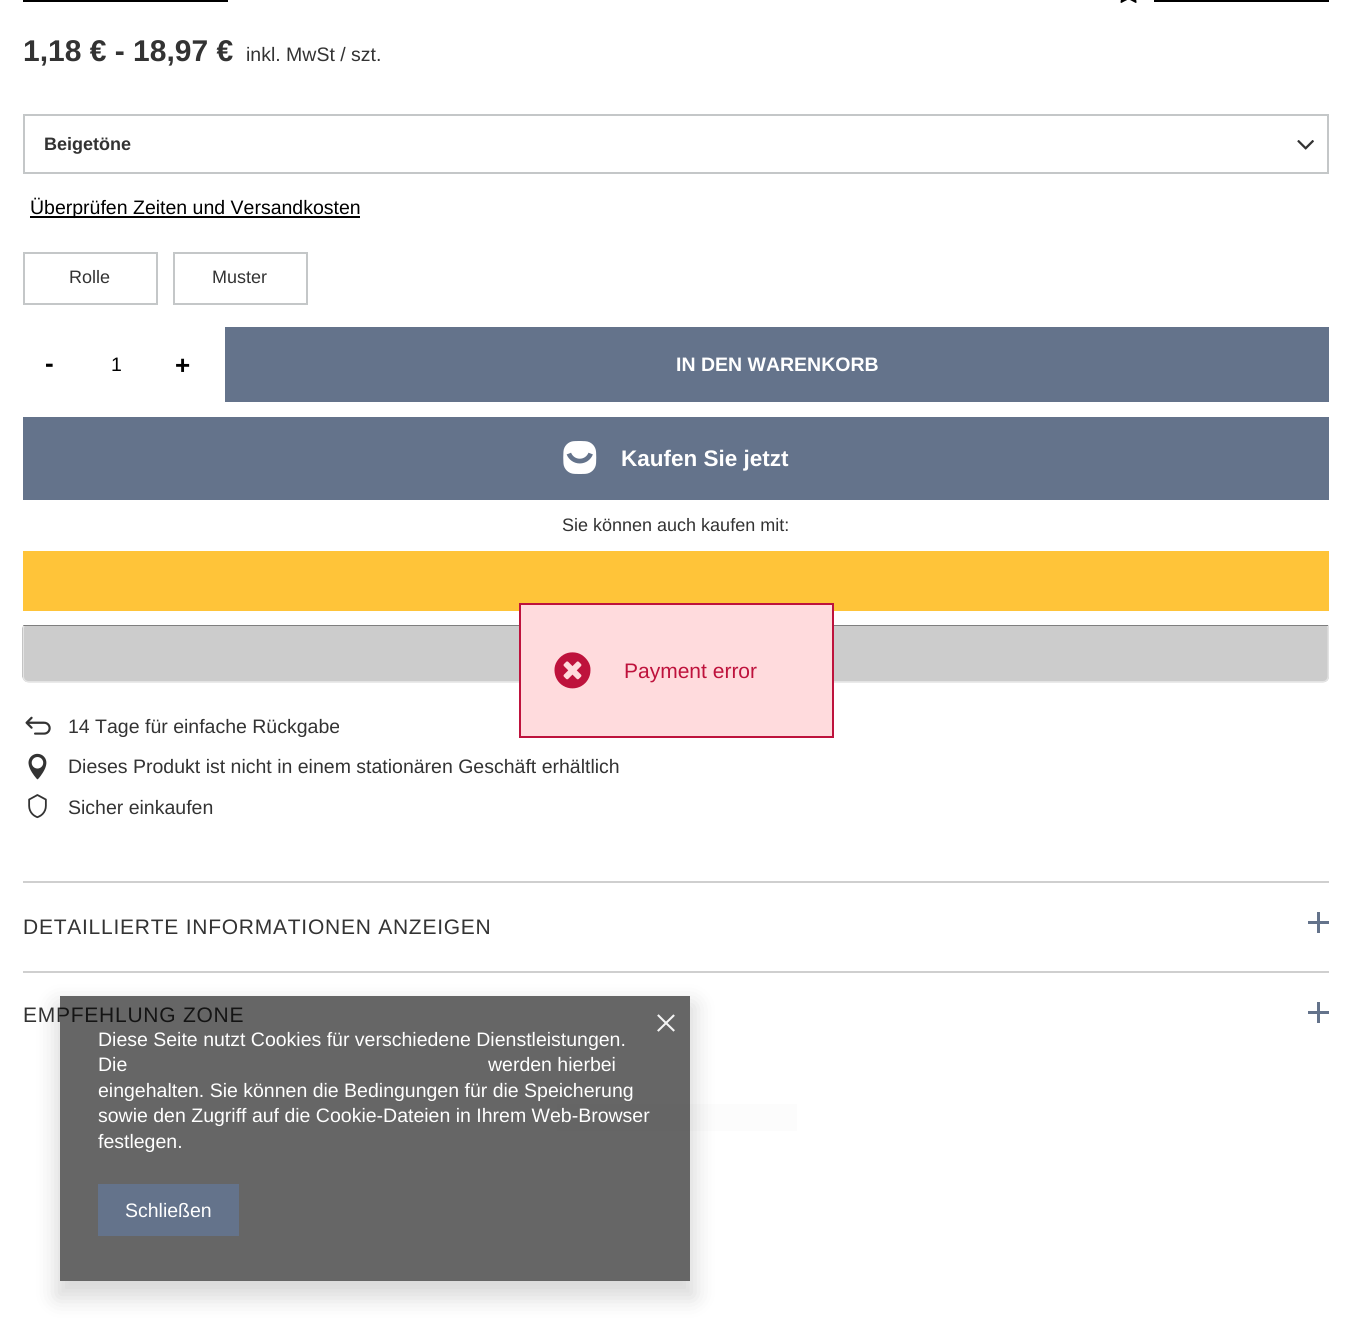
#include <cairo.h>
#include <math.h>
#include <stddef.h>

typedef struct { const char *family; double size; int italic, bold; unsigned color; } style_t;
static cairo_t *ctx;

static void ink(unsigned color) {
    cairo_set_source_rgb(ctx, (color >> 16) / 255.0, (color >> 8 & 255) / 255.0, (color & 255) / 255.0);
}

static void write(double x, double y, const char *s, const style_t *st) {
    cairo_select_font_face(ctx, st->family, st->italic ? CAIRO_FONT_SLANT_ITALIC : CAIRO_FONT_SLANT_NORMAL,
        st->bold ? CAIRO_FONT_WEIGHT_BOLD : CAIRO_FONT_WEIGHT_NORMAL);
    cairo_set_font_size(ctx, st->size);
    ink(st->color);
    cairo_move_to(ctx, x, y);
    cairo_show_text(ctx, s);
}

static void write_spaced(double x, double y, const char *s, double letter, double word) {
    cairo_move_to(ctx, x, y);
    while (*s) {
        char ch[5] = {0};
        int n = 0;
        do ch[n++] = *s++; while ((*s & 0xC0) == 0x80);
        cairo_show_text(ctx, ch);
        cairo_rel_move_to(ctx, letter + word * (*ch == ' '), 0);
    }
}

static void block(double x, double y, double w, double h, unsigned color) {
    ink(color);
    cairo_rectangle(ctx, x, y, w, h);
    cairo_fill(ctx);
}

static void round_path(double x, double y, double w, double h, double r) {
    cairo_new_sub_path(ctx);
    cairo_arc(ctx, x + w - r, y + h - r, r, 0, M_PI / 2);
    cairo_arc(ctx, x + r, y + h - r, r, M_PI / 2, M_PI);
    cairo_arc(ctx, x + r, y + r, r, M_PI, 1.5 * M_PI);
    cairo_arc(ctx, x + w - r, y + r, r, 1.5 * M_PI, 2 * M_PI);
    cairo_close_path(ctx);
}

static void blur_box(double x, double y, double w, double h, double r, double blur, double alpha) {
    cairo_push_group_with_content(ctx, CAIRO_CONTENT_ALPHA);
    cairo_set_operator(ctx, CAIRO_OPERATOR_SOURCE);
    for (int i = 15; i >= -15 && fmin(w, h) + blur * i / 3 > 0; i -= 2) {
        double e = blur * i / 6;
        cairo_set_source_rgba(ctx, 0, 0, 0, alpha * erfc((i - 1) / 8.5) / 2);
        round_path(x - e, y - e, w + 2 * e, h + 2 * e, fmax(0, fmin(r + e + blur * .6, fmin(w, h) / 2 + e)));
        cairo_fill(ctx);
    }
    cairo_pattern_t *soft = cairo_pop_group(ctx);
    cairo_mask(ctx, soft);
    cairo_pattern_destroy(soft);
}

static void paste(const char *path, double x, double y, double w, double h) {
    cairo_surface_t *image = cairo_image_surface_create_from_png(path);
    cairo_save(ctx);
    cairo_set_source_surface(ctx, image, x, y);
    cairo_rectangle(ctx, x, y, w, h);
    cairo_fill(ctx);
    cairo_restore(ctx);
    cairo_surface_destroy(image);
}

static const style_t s1 = {"Liberation Sans", 30, 0, 1, 0x333333};
static const style_t s2 = {"Liberation Sans", 19.5, 0, 0, 0x333333};
static const style_t s3 = {"Liberation Sans", 18, 0, 1, 0x333333};
static const style_t s4 = {"Liberation Sans", 19.5, 0, 0, 0x000000};
static const style_t s5 = {"Liberation Sans", 18, 0, 0, 0x333333};
static const style_t s6 = {"Liberation Sans", 26, 0, 1, 0x000000};
static const style_t s7 = {"Liberation Sans", 19.5, 0, 1, 0xffffff};
static const style_t s8 = {"Liberation Sans", 22.5, 0, 1, 0xffffff};
static const style_t s9 = {"Liberation Sans", 21, 0, 0, 0xbe123c};
static const style_t s10 = {"Liberation Sans", 19.5, 0, 0, 0xffffff};

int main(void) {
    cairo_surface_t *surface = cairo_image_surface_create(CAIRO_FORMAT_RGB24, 1351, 1341);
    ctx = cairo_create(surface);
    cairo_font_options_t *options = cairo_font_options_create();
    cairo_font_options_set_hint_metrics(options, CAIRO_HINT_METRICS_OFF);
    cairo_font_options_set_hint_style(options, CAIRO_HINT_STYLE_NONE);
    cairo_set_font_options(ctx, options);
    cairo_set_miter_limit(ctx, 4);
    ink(0xffffff);
    cairo_paint(ctx);
    block(23, 0, 205, 2, 0x000000);
    paste("pic1.png", 1120, 0, 17, 3);
    block(1154, 0, 175, 2, 0x000000);
    write(23, 61, "1,18 € - 18,97 €", &s1);
    write(246, 61, "inkl. MwSt / szt.", &s2);
    cairo_rectangle(ctx, 24, 115, 1304, 58);
    ink(0xc4c7c8);
    cairo_stroke(ctx);
    write(44, 150, "Beigetöne", &s3);
    paste("pic2.png", 1297, 140, 17, 10);
    block(30, 216, 330, 2, 0x000000);
    write(30, 214, "Überprüfen Zeiten und Versandkosten", &s4);
    cairo_rectangle(ctx, 24, 253, 133, 51);
    ink(0xc4c7c8);
    cairo_stroke(ctx);
    write(69, 283, "Rolle", &s5);
    cairo_rectangle(ctx, 174, 253, 133, 51);
    ink(0xc4c7c8);
    cairo_stroke(ctx);
    write(212, 283, "Muster", &s5);
    write(45, 372, "-", &s6);
    write(111, 371, "1", &s4);
    write(175, 374, "+", &s6);
    block(225, 327, 1104, 75, 0x64738b);
    write(676, 371, "IN DEN WARENKORB", &s7);
    block(23, 417, 1306, 83, 0x64738b);
    paste("pic3.png", 563, 441, 34, 33);
    write(621, 466, "Kaufen Sie jetzt", &s8);
    write(562, 531, "Sie können auch kaufen mit:", &s5);
    block(23, 551, 1306, 60, 0xffc439);
    paste("pic4.png", 22, 625, 1307, 58);
    paste("pic5.png", 25, 716, 26, 19);
    write(68, 733, "14 Tage für einfache Rückgabe", &s2);
    paste("pic6.png", 28, 753, 19, 27);
    write(68, 773, "Dieses Produkt ist nicht in einem stationären Geschäft erhältlich", &s2);
    paste("pic7.png", 28, 794, 19, 25);
    write(68, 814, "Sicher einkaufen", &s2);
    block(23, 881, 1306, 2, 0xcfcfcf);
    cairo_set_font_size(ctx, 21);
    ink(0x333333);
    write_spaced(23, 934, "DETAILLIERTE INFORMATIONEN ANZEIGEN", 0.75, 0);
    block(1317, 912, 3, 21, 0x64738b);
    block(1308, 921, 21, 3, 0x64738b);
    block(23, 971, 1306, 2, 0xcfcfcf);
    ink(0x333333);
    write_spaced(23, 1022, "EMPFEHLUNG ZONE", 0.75, 0);
    block(1317, 1002, 3, 21, 0x64738b);
    block(1308, 1011, 21, 3, 0x64738b);
    block(557, 1104, 240, 27, 0xfcfcfc);
    ink(0xffdbdd);
    cairo_rectangle(ctx, 520, 604, 313, 133);
    cairo_fill_preserve(ctx);
    ink(0xbe123c);
    cairo_stroke(ctx);
    paste("pic8.png", 554, 652, 37, 37);
    write(624, 678, "Payment error", &s9);
    cairo_save(ctx);
    cairo_set_fill_rule(ctx, CAIRO_FILL_RULE_EVEN_ODD);
    cairo_new_path(ctx);
    cairo_move_to(ctx, 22, 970);
    cairo_line_to(ctx, 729, 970);
    cairo_line_to(ctx, 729, 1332);
    cairo_line_to(ctx, 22, 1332);
    cairo_close_path(ctx);
    cairo_move_to(ctx, 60, 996);
    cairo_line_to(ctx, 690, 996);
    cairo_line_to(ctx, 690, 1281);
    cairo_line_to(ctx, 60, 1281);
    cairo_close_path(ctx);
    cairo_clip(ctx);
    ink(0x000000);
    blur_box(56, 1004, 639, 294, 0, 11, 0.15);
    cairo_restore(ctx);
    cairo_set_source_rgba(ctx, 0, 0, 0, 0.6);
    cairo_rectangle(ctx, 60, 996, 630, 285);
    cairo_fill(ctx);
    paste("pic9.png", 657, 1014, 18, 18);
    write(98, 1046, "Diese Seite nutzt Cookies für verschiedene Dienstleistungen.", &s10);
    write(98, 1071, "Die", &s10);
    write(488, 1071, "werden hierbei", &s10);
    write(98, 1097, "eingehalten. Sie können die Bedingungen für die Speicherung", &s10);
    write(98, 1122, "sowie den Zugriff auf die Cookie-Dateien in Ihrem Web-Browser", &s10);
    write(98, 1148, "festlegen.", &s10);
    block(98, 1184, 141, 52, 0x64738b);
    write(125, 1217, "Schließen", &s10);
    cairo_surface_write_to_png(surface, "screenshot.png");
    cairo_font_options_destroy(options);
    cairo_destroy(ctx);
    cairo_surface_destroy(surface);
    return 0;
}
